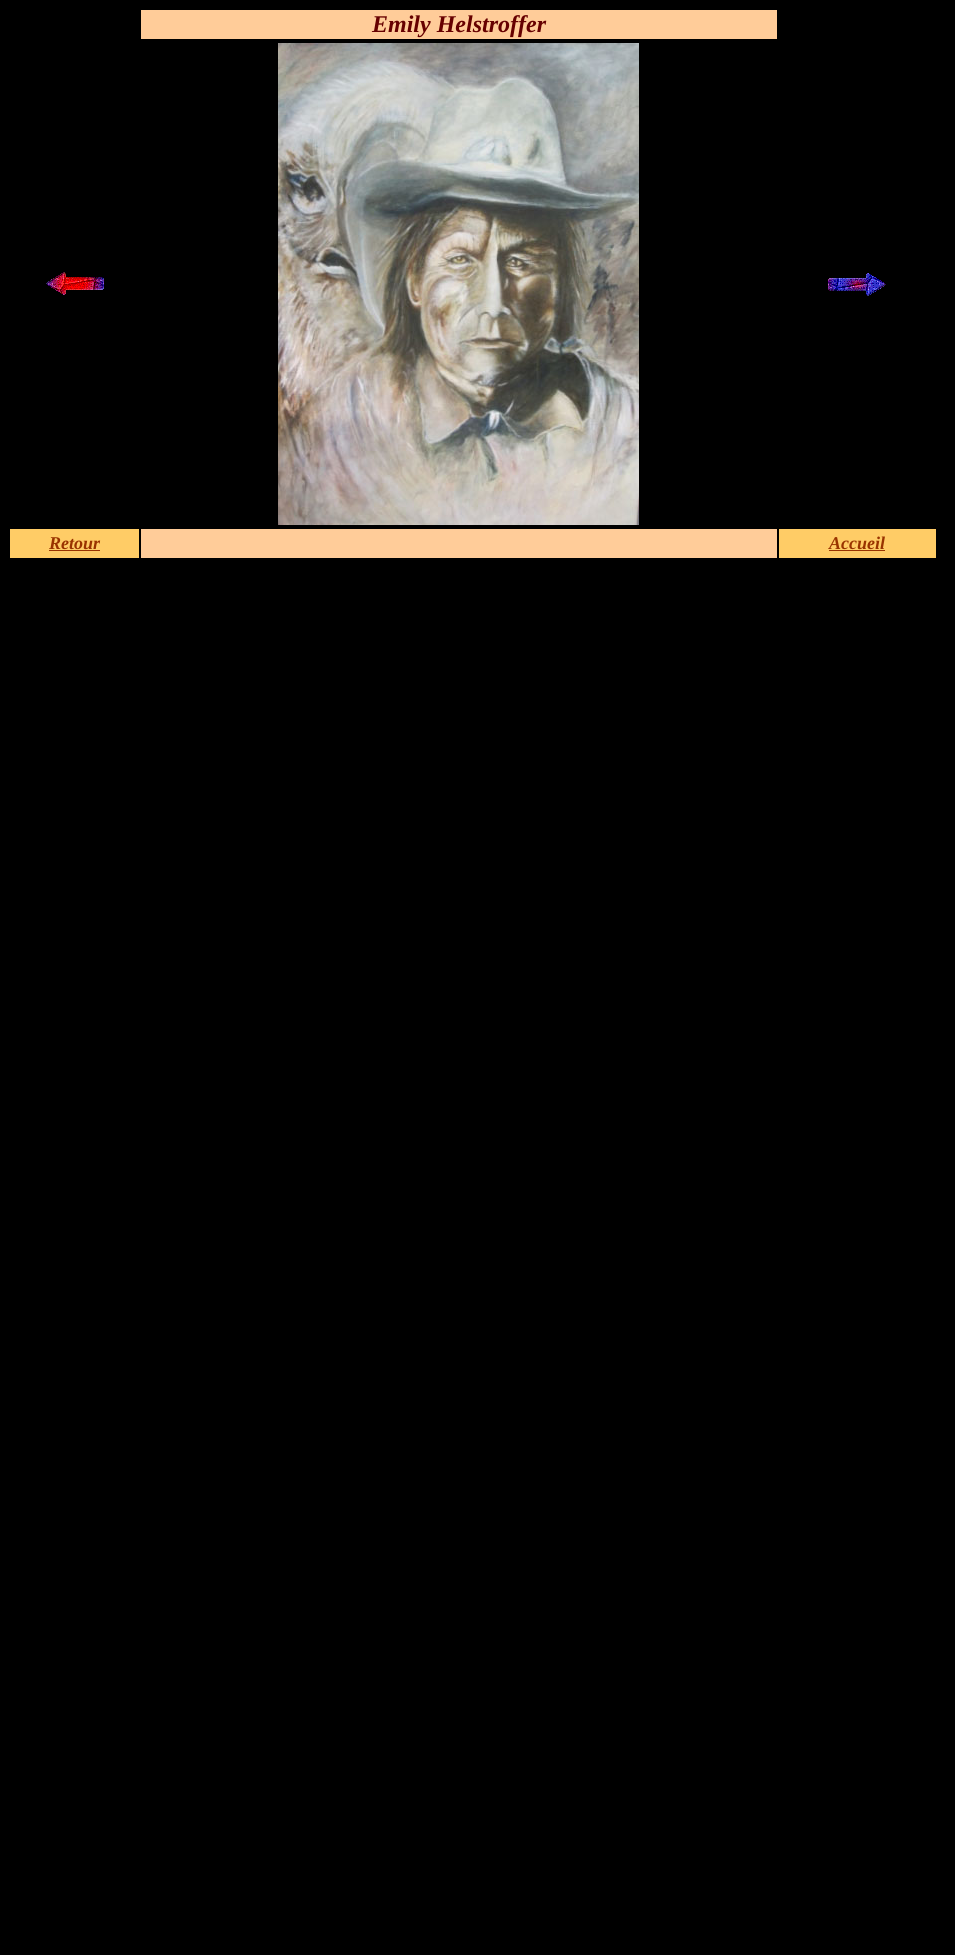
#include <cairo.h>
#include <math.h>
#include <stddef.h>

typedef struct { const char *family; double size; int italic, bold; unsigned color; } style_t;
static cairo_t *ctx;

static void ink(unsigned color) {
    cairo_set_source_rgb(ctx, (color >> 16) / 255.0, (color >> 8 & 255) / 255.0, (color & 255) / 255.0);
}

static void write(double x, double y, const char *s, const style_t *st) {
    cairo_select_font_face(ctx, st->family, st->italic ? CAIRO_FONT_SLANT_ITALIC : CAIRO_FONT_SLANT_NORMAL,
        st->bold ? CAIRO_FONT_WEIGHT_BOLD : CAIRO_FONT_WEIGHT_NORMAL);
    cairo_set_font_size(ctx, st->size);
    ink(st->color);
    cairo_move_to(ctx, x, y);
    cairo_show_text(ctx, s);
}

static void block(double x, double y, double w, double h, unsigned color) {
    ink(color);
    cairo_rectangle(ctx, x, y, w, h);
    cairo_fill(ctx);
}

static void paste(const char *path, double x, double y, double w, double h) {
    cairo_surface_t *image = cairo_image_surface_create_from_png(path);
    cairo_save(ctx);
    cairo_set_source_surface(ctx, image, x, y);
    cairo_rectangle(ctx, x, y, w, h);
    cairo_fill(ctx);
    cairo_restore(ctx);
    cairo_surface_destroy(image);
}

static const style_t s1 = {"Liberation Serif", 24, 1, 1, 0x660000};
static const style_t s2 = {"Liberation Serif", 18, 1, 1, 0x993300};

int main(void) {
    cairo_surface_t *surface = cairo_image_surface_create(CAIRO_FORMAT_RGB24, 955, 1955);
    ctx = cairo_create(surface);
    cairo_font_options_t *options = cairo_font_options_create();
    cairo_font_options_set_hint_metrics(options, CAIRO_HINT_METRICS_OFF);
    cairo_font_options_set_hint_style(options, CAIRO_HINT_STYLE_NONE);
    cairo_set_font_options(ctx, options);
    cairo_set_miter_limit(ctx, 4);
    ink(0x000000);
    cairo_paint(ctx);
    block(141, 10, 636, 29, 0xffcc99);
    write(372, 32, "Emily Helstroffer", &s1);
    paste("pic1.png", 46, 272, 58, 23);
    paste("pic2.png", 278, 43, 361, 482);
    paste("pic3.png", 828, 273, 58, 23);
    block(10, 529, 129, 29, 0xffcc66);
    write(49, 549, "Retour", &s2);
    block(49, 550, 51, 1, 0x993300);
    block(141, 529, 636, 29, 0xffcc99);
    block(779, 529, 157, 29, 0xffcc66);
    write(829, 549, "Accueil", &s2);
    block(829, 550, 56, 1, 0x993300);
    cairo_surface_write_to_png(surface, "screenshot.png");
    cairo_font_options_destroy(options);
    cairo_destroy(ctx);
    cairo_surface_destroy(surface);
    return 0;
}
